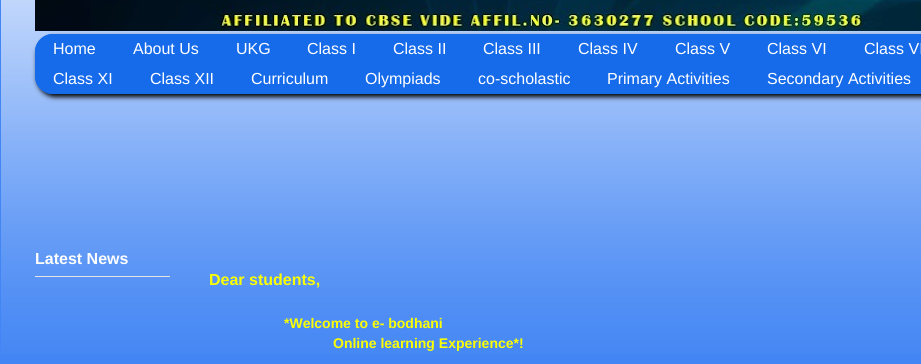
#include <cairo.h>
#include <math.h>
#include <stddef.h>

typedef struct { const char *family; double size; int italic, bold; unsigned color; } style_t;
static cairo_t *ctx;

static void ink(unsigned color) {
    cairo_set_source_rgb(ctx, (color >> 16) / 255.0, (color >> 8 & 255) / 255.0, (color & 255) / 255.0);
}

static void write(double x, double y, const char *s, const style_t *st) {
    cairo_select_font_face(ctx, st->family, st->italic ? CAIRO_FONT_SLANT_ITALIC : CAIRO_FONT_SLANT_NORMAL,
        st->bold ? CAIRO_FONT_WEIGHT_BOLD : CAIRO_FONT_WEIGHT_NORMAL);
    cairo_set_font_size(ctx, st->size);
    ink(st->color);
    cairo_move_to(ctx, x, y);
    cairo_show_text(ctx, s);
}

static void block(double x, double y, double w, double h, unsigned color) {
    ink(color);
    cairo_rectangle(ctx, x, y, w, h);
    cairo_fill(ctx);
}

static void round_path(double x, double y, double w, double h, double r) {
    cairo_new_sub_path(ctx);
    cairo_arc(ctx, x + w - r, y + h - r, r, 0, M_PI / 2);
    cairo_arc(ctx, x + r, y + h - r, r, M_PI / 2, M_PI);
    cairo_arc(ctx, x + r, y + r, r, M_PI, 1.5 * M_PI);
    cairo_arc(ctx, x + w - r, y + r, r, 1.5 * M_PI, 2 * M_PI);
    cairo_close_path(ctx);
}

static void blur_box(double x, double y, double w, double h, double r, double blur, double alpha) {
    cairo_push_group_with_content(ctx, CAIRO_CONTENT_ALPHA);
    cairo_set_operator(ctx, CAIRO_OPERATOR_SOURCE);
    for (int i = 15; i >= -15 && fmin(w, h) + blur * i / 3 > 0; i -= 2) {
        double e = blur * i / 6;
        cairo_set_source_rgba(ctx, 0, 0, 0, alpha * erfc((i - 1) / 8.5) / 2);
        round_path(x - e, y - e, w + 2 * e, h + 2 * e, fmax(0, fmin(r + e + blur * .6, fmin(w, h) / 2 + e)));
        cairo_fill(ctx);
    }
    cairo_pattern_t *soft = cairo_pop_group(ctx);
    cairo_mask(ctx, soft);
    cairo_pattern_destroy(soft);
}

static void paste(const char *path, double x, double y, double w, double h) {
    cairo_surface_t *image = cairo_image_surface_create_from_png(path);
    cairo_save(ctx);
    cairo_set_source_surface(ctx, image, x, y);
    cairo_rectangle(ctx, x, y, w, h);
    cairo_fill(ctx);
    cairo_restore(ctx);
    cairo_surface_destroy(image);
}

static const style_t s1 = {"Liberation Sans", 16, 0, 0, 0xffffff};
static const style_t s2 = {"Liberation Sans", 16, 0, 1, 0xffffff};
static const style_t s3 = {"Liberation Sans", 16, 0, 1, 0xfcff01};
static const style_t s4 = {"Liberation Sans", 14, 0, 1, 0xfcff01};

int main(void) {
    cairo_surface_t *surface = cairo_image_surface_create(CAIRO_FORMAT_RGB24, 921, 364);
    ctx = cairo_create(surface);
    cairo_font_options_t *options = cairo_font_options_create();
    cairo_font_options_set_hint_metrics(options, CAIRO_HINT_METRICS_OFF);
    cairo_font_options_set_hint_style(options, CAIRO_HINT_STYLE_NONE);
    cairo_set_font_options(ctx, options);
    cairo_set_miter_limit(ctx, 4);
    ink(0x4285f4);
    cairo_paint(ctx);
    paste("pic1.png", 1, 0, 920, 354);
    paste("pic2.png", 35, 0, 886, 31);
    ink(0x000000);
    blur_box(37, 37, 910, 60, 18, 2.5, 1);
    ink(0x166bea);
    round_path(35, 34, 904, 60, 18);
    cairo_fill(ctx);
    cairo_new_path(ctx);
    cairo_move_to(ctx, 53, 34);
    cairo_line_to(ctx, 109, 34);
    cairo_curve_to(ctx, 112, 34, 114, 36, 114, 39);
    cairo_line_to(ctx, 114, 64);
    cairo_line_to(ctx, 35, 64);
    cairo_line_to(ctx, 35, 52);
    cairo_curve_to(ctx, 35, 42, 43, 34, 53, 34);
    cairo_close_path(ctx);
    cairo_fill(ctx);
    write(53, 54, "Home", &s1);
    write(133, 54, "About Us", &s1);
    write(236, 54, "UKG", &s1);
    write(307, 54, "Class I", &s1);
    write(393, 54, "Class II", &s1);
    write(483, 54, "Class III", &s1);
    write(578, 54, "Class IV", &s1);
    write(675, 54, "Class V", &s1);
    write(767, 54, "Class VI", &s1);
    write(864, 54, "Class VI", &s1);
    ink(0x166bea);
    cairo_new_path(ctx);
    cairo_move_to(ctx, 40, 64);
    cairo_line_to(ctx, 126, 64);
    cairo_curve_to(ctx, 129, 64, 131, 66, 131, 69);
    cairo_line_to(ctx, 131, 94);
    cairo_line_to(ctx, 53, 94);
    cairo_curve_to(ctx, 43, 94, 35, 86, 35, 76);
    cairo_line_to(ctx, 35, 69);
    cairo_curve_to(ctx, 35, 66, 37, 64, 40, 64);
    cairo_close_path(ctx);
    cairo_fill(ctx);
    write(53, 84, "Class XI", &s1);
    write(150, 84, "Class XII", &s1);
    write(251, 84, "Curriculum", &s1);
    write(365, 84, "Olympiads", &s1);
    write(478, 84, "co-scholastic", &s1);
    write(607, 84, "Primary Activities", &s1);
    write(767, 84, "Secondary Activities", &s1);
    block(35, 276, 135, 1, 0xe5e5e5);
    write(35, 264, "Latest News", &s2);
    write(209, 285, "Dear students,", &s3);
    write(284, 328, "*Welcome to e- bodhani", &s4);
    write(333, 348, "Online learning Experience*!", &s4);
    cairo_surface_write_to_png(surface, "screenshot.png");
    cairo_font_options_destroy(options);
    cairo_destroy(ctx);
    cairo_surface_destroy(surface);
    return 0;
}
